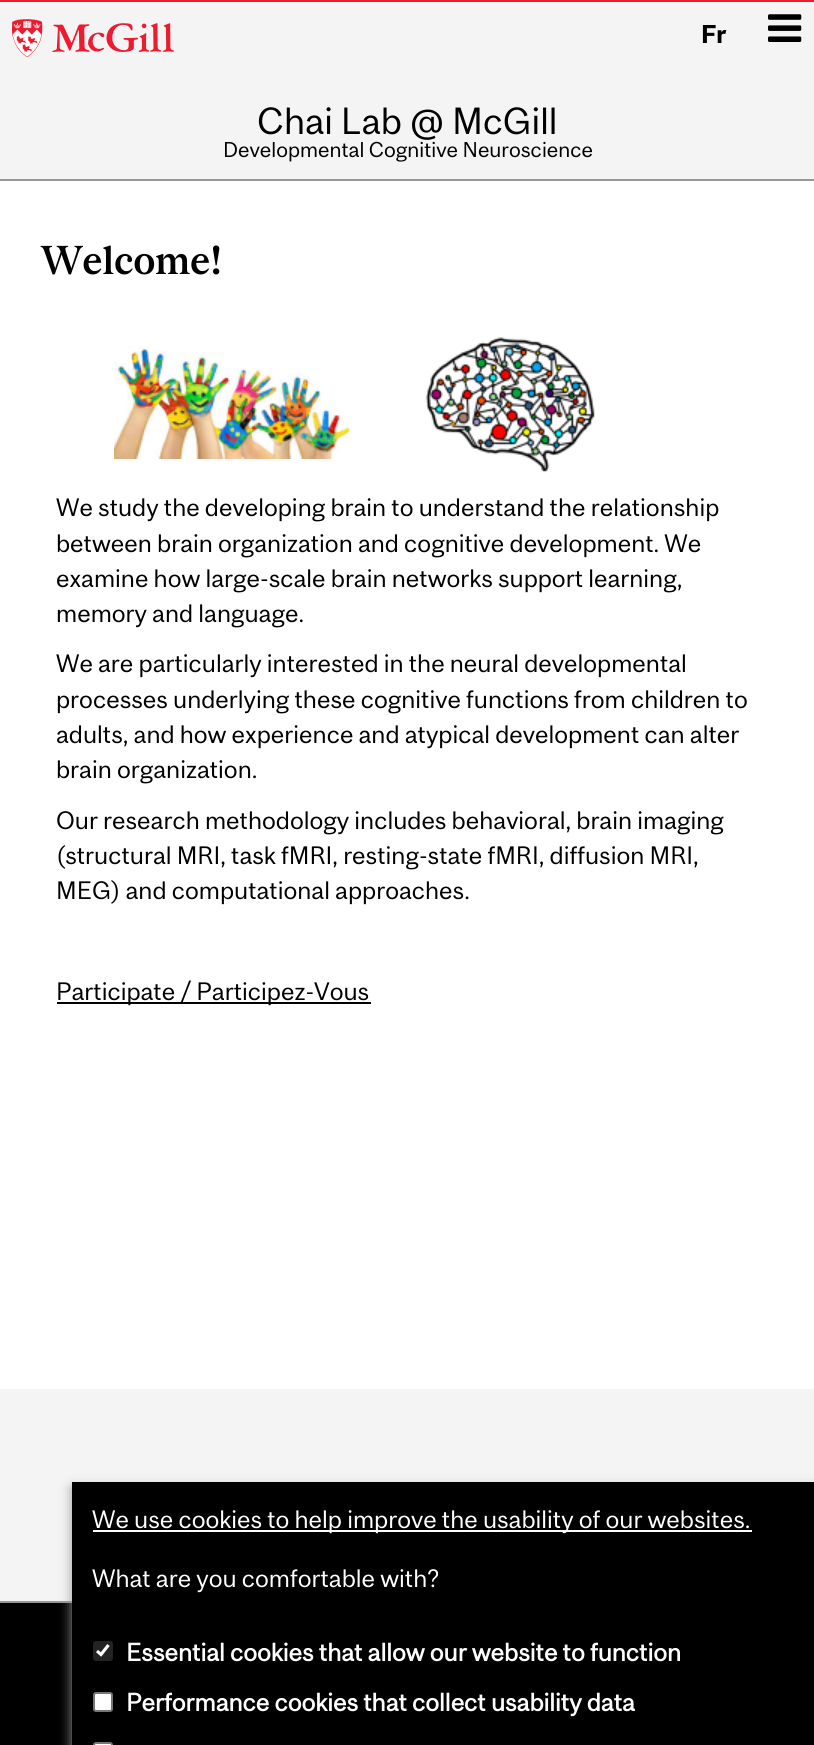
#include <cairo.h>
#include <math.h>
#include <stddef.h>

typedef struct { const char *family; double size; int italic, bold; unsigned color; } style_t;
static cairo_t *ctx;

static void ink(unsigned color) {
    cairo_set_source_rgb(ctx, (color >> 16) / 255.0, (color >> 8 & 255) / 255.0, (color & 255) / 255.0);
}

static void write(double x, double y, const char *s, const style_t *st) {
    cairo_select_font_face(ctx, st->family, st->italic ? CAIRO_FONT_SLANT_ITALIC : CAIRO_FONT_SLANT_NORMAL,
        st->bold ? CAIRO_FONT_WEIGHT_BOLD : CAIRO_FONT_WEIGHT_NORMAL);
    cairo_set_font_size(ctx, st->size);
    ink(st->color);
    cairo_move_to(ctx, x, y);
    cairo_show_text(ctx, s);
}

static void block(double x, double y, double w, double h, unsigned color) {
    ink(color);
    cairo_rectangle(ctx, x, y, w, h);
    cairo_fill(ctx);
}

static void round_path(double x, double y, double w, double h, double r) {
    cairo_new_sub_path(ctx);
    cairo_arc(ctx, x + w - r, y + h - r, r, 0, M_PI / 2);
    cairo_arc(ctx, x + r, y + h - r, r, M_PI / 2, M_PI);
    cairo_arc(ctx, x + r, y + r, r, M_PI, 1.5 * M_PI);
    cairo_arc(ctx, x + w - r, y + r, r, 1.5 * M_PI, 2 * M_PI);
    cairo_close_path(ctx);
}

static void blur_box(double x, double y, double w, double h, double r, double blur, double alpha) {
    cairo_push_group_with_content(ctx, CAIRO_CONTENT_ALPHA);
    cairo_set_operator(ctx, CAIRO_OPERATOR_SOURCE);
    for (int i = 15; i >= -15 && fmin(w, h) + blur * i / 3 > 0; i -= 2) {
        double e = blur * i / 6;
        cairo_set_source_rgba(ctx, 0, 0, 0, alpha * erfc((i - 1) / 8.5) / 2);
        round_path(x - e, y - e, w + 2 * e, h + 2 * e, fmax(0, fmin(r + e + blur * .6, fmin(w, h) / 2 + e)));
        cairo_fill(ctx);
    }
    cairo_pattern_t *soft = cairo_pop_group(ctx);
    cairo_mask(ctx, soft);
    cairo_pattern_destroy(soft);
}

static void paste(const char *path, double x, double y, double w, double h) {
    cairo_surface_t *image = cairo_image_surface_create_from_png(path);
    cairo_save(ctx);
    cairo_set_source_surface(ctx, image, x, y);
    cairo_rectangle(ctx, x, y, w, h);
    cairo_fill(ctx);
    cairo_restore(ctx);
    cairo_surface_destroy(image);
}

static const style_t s1 = {"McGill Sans", 24, 0, 1, 0x000000};
static const style_t s2 = {"McGill Sans", 35.25, 0, 0, 0x000000};
static const style_t s3 = {"McGill Sans", 20, 0, 0, 0x000000};
static const style_t s4 = {"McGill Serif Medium", 37.5, 0, 0, 0x000000};
static const style_t s5 = {"McGill Sans", 23.5, 0, 0, 0x000000};
static const style_t s6 = {"McGill Sans", 23.5, 0, 0, 0xffffff};
static const style_t s7 = {"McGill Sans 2", 23.5, 0, 1, 0xffffff};

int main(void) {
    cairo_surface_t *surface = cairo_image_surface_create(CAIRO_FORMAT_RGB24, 814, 1745);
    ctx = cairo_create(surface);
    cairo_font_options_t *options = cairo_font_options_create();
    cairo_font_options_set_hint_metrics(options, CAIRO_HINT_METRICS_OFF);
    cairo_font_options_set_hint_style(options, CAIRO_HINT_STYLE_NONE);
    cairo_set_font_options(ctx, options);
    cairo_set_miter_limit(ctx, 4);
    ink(0xffffff);
    cairo_paint(ctx);
    block(0, 2, 814, 177, 0xf4f4f4);
    block(0, 0, 814, 2, 0xed1b2f);
    block(0, 179, 814, 2, 0x979797);
    paste("pic1.png", 12, 19, 162, 39);
    write(701, 43, "Fr", &s1);
    paste("pic2.png", 768, 14, 34, 28);
    write(257, 134, "Chai Lab @ McGill", &s2);
    write(223, 157, "Developmental Cognitive Neuroscience", &s3);
    write(41, 274, "Welcome!", &s4);
    paste("pic3.png", 114, 345, 237, 114);
    paste("pic4.png", 425, 337, 170, 136);
    write(56, 516, "We study the developing brain to understand the relationship", &s5);
    write(56, 552, "between brain organization and cognitive development. We", &s5);
    write(56, 587, "examine how large-scale brain networks support learning,", &s5);
    write(56, 622, "memory and language.", &s5);
    write(56, 672, "We are particularly interested in the neural developmental", &s5);
    write(56, 708, "processes underlying these cognitive functions from children to", &s5);
    write(56, 743, "adults, and how experience and atypical development can alter", &s5);
    write(56, 778, "brain organization.", &s5);
    write(56, 829, "Our research methodology includes behavioral, brain imaging", &s5);
    write(56, 864, "(structural MRI, task fMRI, resting-state fMRI, diffusion MRI,", &s5);
    write(56, 899, "MEG) and computational approaches.", &s5);
    block(57, 1002, 314, 2, 0x000000);
    write(56, 1000, "Participate / Participez-Vous", &s5);
    block(0, 1389, 814, 212, 0xf4f4f4);
    block(0, 1603, 72, 142, 0x000000);
    block(0, 1601, 72, 2, 0x979797);
    ink(0x979799);
    blur_box(72, 1488, 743, 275, 0, 6, 1);
    block(72, 1482, 742, 263, 0x000000);
    block(93, 1530, 659, 2, 0xffffff);
    write(92, 1528, "We use cookies to help improve the usability of our websites.", &s6);
    write(92, 1587, "What are you comfortable with?", &s6);
    ink(0x232323);
    round_path(93, 1641, 20, 20, 3);
    cairo_fill(ctx);
    cairo_new_path(ctx);
    cairo_move_to(ctx, 97, 1651);
    cairo_line_to(ctx, 101, 1654.5);
    cairo_line_to(ctx, 108.5, 1645);
    ink(0xffffff);
    cairo_set_line_width(ctx, 3.1);
    cairo_stroke(ctx);
    write(126, 1661, "Essential cookies that allow our website to function", &s7);
    round_path(94, 1693, 18, 18, 2);
    cairo_fill_preserve(ctx);
    ink(0x767676);
    cairo_set_line_width(ctx, 2);
    cairo_stroke(ctx);
    write(126, 1711, "Performance cookies that collect usability data", &s7);
    round_path(94, 1743, 18, 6, 2);
    cairo_fill_preserve(ctx);
    ink(0x767676);
    cairo_stroke(ctx);
    cairo_surface_write_to_png(surface, "screenshot.png");
    cairo_font_options_destroy(options);
    cairo_destroy(ctx);
    cairo_surface_destroy(surface);
    return 0;
}
